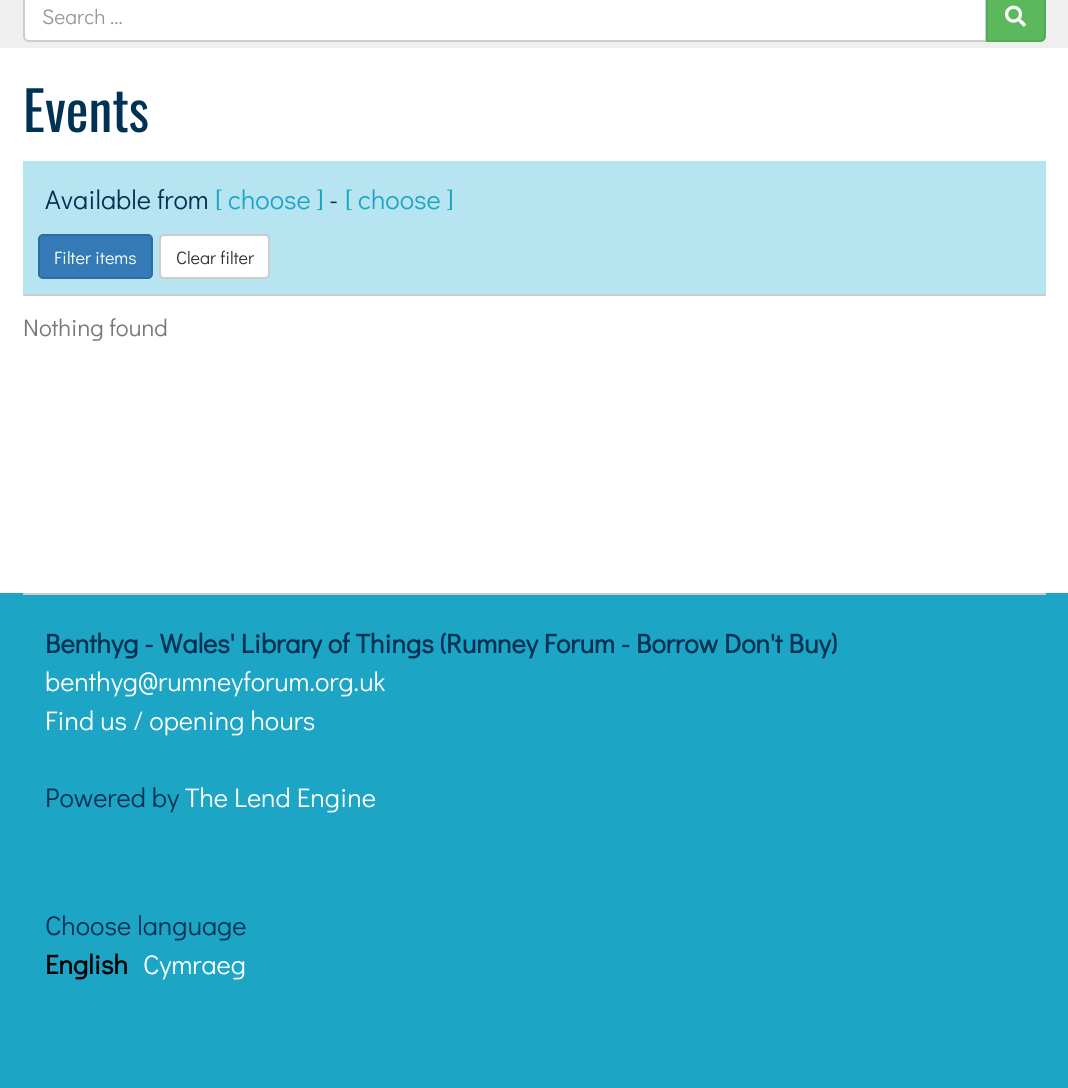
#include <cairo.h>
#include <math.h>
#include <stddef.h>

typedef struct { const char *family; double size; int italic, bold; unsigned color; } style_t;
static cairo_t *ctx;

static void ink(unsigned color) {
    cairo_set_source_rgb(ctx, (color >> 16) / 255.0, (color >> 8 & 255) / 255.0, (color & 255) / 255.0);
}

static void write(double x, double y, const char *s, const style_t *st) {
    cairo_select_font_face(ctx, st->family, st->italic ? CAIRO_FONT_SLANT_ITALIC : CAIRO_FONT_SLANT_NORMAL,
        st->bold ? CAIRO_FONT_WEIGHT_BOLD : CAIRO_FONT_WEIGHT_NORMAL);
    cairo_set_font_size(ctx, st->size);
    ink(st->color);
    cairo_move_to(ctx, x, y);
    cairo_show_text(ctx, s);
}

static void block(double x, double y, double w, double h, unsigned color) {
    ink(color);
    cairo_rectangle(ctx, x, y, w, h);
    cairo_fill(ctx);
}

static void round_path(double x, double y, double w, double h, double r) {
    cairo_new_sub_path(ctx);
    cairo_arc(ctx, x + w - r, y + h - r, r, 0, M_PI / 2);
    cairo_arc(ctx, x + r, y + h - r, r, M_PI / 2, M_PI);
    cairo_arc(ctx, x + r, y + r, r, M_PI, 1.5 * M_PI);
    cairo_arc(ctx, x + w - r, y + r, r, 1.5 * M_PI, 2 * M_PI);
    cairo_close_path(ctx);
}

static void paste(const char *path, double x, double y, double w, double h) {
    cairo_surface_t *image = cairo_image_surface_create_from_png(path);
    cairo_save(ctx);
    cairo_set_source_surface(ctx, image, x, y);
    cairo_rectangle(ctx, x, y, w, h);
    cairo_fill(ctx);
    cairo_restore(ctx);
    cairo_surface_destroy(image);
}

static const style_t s1 = {"Didact Gothic", 21, 0, 0, 0x999999};
static const style_t s2 = {"Oswald", 54, 0, 0, 0x003254};
static const style_t s3 = {"Didact Gothic", 27, 0, 0, 0x003254};
static const style_t s4 = {"Didact Gothic", 27, 0, 0, 0x1da5c6};
static const style_t s5 = {"Didact Gothic", 18, 0, 0, 0xffffff};
static const style_t s6 = {"Didact Gothic", 18, 0, 0, 0x333333};
static const style_t s7 = {"Didact Gothic", 24, 0, 0, 0x777777};
static const style_t s8 = {"Didact Gothic", 27, 0, 1, 0x003254};
static const style_t s9 = {"Didact Gothic", 27, 0, 0, 0xffffff};
static const style_t s10 = {"Didact Gothic", 27, 0, 1, 0x000000};

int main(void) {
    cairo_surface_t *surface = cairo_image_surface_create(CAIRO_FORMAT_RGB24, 1068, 1088);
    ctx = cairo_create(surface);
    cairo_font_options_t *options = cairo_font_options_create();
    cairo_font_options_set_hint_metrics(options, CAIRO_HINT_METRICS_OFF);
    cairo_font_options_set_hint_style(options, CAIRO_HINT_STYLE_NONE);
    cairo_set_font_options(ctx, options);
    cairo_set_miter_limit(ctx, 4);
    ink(0xffffff);
    cairo_paint(ctx);
    block(0, 0, 1068, 48, 0xefefef);
    ink(0xffffff);
    cairo_new_path(ctx);
    cairo_move_to(ctx, 29, -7);
    cairo_line_to(ctx, 986, -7);
    cairo_line_to(ctx, 986, 41);
    cairo_line_to(ctx, 29, 41);
    cairo_curve_to(ctx, 26, 41, 24, 39, 24, 36);
    cairo_line_to(ctx, 24, -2);
    cairo_curve_to(ctx, 24, -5, 26, -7, 29, -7);
    cairo_close_path(ctx);
    cairo_fill_preserve(ctx);
    ink(0xcccccc);
    cairo_stroke(ctx);
    write(42, 24, "Search ...", &s1);
    ink(0x5cb85c);
    cairo_new_path(ctx);
    cairo_move_to(ctx, 987, -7);
    cairo_line_to(ctx, 1040, -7);
    cairo_curve_to(ctx, 1043, -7, 1045, -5, 1045, -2);
    cairo_line_to(ctx, 1045, 36);
    cairo_curve_to(ctx, 1045, 39, 1043, 41, 1040, 41);
    cairo_line_to(ctx, 987, 41);
    cairo_close_path(ctx);
    cairo_fill_preserve(ctx);
    ink(0x4cae4c);
    cairo_stroke(ctx);
    paste("pic1.png", 1005, 5, 21, 22);
    write(23, 132, "Events", &s2);
    block(23, 161, 1023, 133, 0xb6e4f0);
    block(23, 294, 1023, 2, 0xcccccc);
    write(45, 209, "Available from", &s3);
    write(215, 209, "[ choose ]", &s4);
    write(329, 209, "-", &s3);
    write(345, 209, "[ choose ]", &s4);
    ink(0x337ab7);
    round_path(39, 235, 113, 43, 4);
    cairo_fill_preserve(ctx);
    ink(0x2e6da4);
    cairo_stroke(ctx);
    write(54, 264, "Filter items", &s5);
    round_path(160, 235, 109, 43, 4);
    cairo_fill_preserve(ctx);
    ink(0xcccccc);
    cairo_stroke(ctx);
    write(176, 264, "Clear filter", &s6);
    write(23, 336, "Nothing found", &s7);
    block(0, 593, 1068, 495, 0x1da5c6);
    block(23, 593, 1023, 2, 0xcccccc);
    write(45, 653, "Benthyg - Wales' Library of Things (Rumney Forum - Borrow Don't Buy)", &s8);
    write(45, 691, "benthyg@rumneyforum.org.uk", &s9);
    write(45, 730, "Find us / opening hours", &s9);
    write(45, 807, "Powered by", &s3);
    write(185, 807, "The Lend Engine", &s9);
    write(45, 935, "Choose language", &s3);
    write(45, 974, "English", &s10);
    write(143, 974, "Cymraeg", &s9);
    cairo_surface_write_to_png(surface, "screenshot.png");
    cairo_font_options_destroy(options);
    cairo_destroy(ctx);
    cairo_surface_destroy(surface);
    return 0;
}
